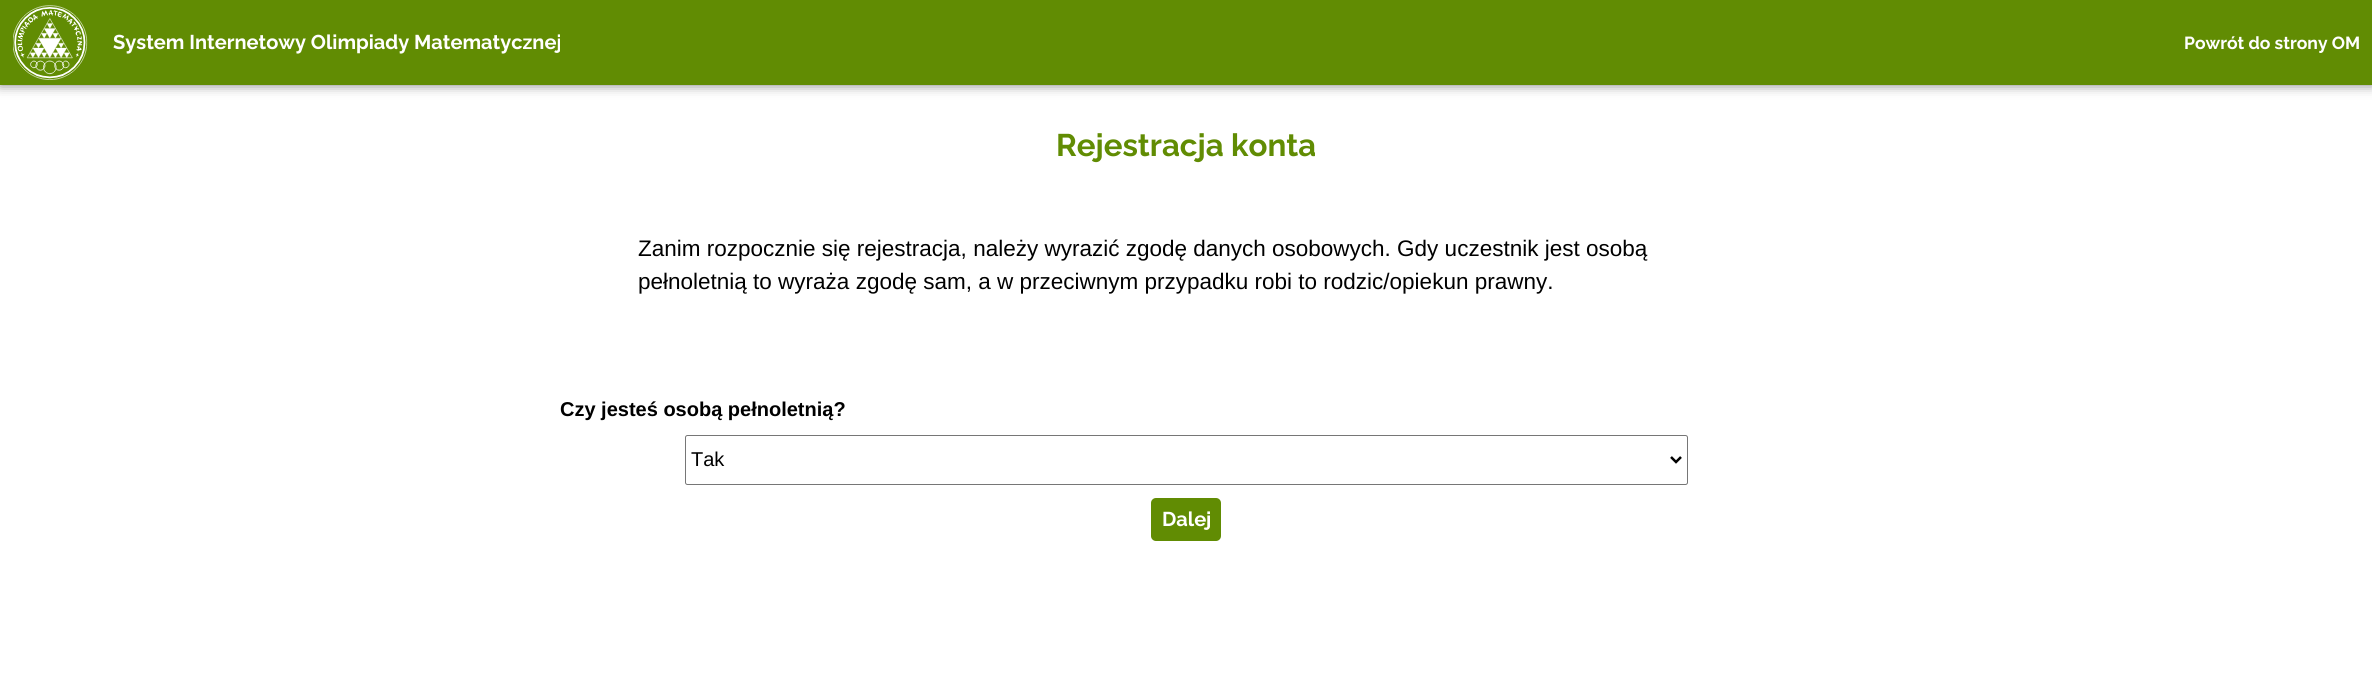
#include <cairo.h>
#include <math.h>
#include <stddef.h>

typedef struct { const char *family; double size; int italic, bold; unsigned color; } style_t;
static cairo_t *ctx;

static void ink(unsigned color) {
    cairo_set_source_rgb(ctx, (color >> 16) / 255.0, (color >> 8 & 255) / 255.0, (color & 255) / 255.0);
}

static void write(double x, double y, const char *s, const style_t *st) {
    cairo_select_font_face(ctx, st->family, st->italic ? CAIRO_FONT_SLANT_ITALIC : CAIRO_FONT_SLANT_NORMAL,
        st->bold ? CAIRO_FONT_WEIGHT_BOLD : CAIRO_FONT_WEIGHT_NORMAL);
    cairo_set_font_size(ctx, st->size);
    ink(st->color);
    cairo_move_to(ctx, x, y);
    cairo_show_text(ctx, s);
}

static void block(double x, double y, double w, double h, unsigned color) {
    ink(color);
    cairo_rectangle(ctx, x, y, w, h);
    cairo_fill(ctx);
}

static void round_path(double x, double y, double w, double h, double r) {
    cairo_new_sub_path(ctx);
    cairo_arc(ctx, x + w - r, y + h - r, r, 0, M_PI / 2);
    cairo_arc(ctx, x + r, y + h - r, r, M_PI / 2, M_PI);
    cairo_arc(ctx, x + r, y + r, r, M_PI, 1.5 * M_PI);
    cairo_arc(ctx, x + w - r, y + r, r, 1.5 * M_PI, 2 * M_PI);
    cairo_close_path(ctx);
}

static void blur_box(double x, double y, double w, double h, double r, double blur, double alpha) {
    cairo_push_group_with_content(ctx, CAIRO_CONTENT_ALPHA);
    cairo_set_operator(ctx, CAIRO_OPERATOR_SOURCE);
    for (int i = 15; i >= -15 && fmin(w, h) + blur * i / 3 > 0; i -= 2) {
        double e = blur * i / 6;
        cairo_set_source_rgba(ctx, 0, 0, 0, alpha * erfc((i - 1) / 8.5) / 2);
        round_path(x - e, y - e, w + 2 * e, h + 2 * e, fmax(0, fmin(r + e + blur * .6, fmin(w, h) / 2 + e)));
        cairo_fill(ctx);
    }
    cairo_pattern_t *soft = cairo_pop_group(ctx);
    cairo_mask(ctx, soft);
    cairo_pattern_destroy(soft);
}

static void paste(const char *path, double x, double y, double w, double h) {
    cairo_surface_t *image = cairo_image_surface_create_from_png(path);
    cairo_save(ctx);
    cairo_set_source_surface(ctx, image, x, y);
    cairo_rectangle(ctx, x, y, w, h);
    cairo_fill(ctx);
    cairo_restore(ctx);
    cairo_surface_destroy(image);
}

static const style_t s1 = {"Raleway Thin", 20, 0, 0, 0xffffff};
static const style_t s2 = {"Raleway Thin", 17.5, 0, 0, 0xffffff};
static const style_t s3 = {"Raleway Thin", 31.25, 0, 0, 0x618c03};
static const style_t s4 = {"Liberation Sans", 22.5, 0, 0, 0x000000};
static const style_t s5 = {"Liberation Sans", 20, 0, 1, 0x000000};
static const style_t s6 = {"Liberation Sans", 20, 0, 0, 0x000000};

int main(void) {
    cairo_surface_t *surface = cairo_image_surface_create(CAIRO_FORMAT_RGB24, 2372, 680);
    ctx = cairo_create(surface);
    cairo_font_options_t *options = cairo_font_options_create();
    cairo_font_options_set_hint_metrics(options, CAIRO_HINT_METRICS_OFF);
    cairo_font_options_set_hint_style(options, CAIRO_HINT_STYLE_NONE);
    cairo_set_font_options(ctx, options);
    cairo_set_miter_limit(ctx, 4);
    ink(0xffffff);
    cairo_paint(ctx);
    ink(0x000000);
    blur_box(0, 0, 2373, 85, 0, 6, 0.5);
    block(0, 0, 2372, 85, 0x618c03);
    paste("pic1.png", 13, 5, 75, 75);
    write(113, 49, "System Internetowy Olimpiady Matematycznej", &s1);
    write(2184, 49, "Powrót do strony OM", &s2);
    write(1056, 156, "Rejestracja konta", &s3);
    write(638, 256, "Zanim rozpocznie się rejestracja, należy wyrazić zgodę danych osobowych. Gdy uczestnik jest osobą", &s4);
    write(638, 289, "pełnoletnią to wyraża zgodę sam, a w przeciwnym przypadku robi to rodzic/opiekun prawny.", &s4);
    write(560, 416, "Czy jesteś osobą pełnoletnią?", &s5);
    round_path(685.5, 435.5, 1002, 49, 2);
    ink(0x767676);
    cairo_set_line_width(ctx, 1);
    cairo_stroke(ctx);
    cairo_new_path(ctx);
    cairo_move_to(ctx, 1671, 457);
    cairo_line_to(ctx, 1676, 462);
    cairo_line_to(ctx, 1681, 457);
    ink(0x000000);
    cairo_set_line_width(ctx, 2.5);
    cairo_stroke(ctx);
    write(691, 466, "Tak", &s6);
    ink(0x618c03);
    round_path(1151, 498, 70, 43, 5);
    cairo_fill(ctx);
    write(1162, 526, "Dalej", &s1);
    cairo_surface_write_to_png(surface, "screenshot.png");
    cairo_font_options_destroy(options);
    cairo_destroy(ctx);
    cairo_surface_destroy(surface);
    return 0;
}
